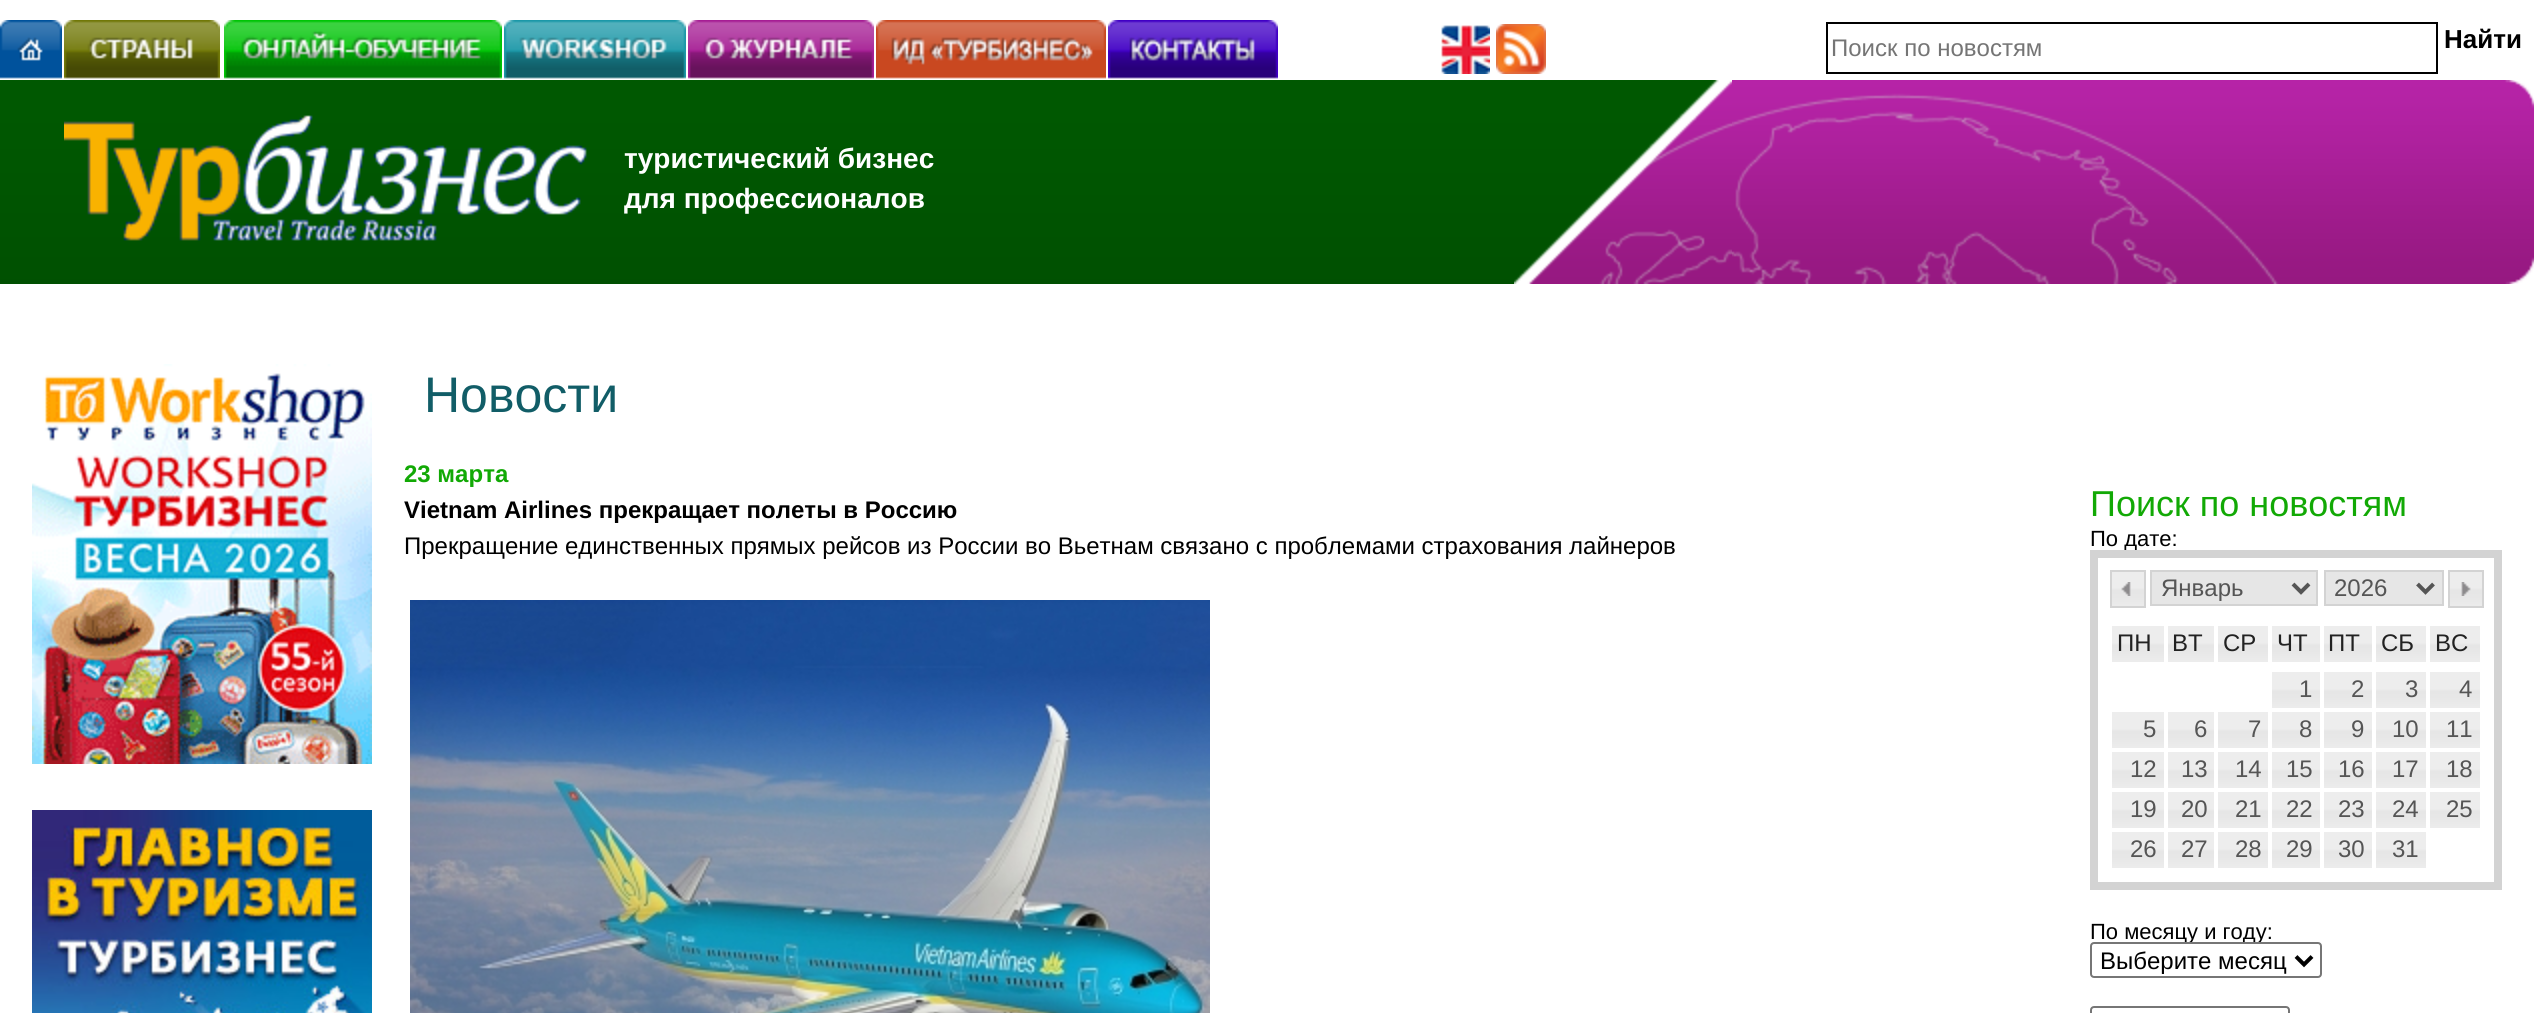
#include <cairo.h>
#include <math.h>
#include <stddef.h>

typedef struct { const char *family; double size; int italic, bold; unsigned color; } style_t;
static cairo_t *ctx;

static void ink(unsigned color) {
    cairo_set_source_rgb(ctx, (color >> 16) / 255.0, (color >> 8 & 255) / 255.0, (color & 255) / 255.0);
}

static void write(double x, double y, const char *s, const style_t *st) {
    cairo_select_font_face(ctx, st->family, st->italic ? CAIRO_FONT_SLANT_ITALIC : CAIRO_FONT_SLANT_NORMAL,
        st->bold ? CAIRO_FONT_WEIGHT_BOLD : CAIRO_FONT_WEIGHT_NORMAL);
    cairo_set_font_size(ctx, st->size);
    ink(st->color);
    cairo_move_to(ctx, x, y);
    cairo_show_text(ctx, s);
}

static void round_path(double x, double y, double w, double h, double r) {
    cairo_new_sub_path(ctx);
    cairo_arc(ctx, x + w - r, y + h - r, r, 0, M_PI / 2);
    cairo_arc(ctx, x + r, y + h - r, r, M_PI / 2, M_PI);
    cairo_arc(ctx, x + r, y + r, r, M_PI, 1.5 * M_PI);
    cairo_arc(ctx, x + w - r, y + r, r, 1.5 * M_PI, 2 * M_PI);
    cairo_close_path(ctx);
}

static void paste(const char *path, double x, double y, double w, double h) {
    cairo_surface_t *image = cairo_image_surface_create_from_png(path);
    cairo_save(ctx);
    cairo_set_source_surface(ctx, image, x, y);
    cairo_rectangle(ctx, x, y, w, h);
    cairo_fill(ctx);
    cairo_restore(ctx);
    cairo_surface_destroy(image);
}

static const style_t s1 = {"Liberation Sans", 24, 0, 0, 0x757575};
static const style_t s2 = {"Liberation Sans", 26, 0, 1, 0x000000};
static const style_t s3 = {"Liberation Sans", 28, 0, 1, 0xffffff};
static const style_t s4 = {"Liberation Sans", 50, 0, 0, 0x115d67};
static const style_t s5 = {"Liberation Sans", 24, 0, 1, 0x12a905};
static const style_t s6 = {"Liberation Sans", 24, 0, 1, 0x000000};
static const style_t s7 = {"Liberation Sans", 24, 0, 0, 0x000000};
static const style_t s8 = {"Liberation Sans", 36, 0, 0, 0x12a905};
static const style_t s9 = {"Liberation Sans", 22, 0, 0, 0x000000};
static const style_t s10 = {"Liberation Sans", 24, 0, 0, 0x555555};
static const style_t s11 = {"Liberation Sans", 24, 0, 0, 0x222222};

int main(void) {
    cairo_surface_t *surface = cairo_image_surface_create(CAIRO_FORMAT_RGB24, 2534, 1013);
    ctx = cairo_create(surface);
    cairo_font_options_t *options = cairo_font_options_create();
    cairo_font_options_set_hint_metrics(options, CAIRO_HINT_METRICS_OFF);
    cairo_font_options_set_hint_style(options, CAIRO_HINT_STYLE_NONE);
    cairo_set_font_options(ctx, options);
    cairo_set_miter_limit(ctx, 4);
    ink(0xffffff);
    cairo_paint(ctx);
    paste("pic1.png", 0, 20, 62, 59);
    paste("pic2.png", 64, 20, 156, 59);
    paste("pic3.png", 224, 20, 278, 59);
    paste("pic4.png", 504, 20, 182, 59);
    paste("pic5.png", 688, 20, 186, 59);
    paste("pic6.png", 876, 20, 230, 59);
    paste("pic7.png", 1108, 20, 170, 59);
    paste("pic8.png", 1441, 25, 49, 49);
    paste("pic9.png", 1496, 24, 50, 50);
    cairo_rectangle(ctx, 1827, 23, 610, 50);
    ink(0x000000);
    cairo_stroke(ctx);
    write(1831, 56, "Поиск по новостям", &s1);
    write(2444, 48, "Найти", &s2);
    paste("pic10.png", 0, 80, 1514, 204);
    paste("pic11.png", 1514, 80, 218, 204);
    paste("pic12.png", 64, 115, 523, 126);
    write(624, 168, "туристический бизнес", &s3);
    write(624, 208, "для профессионалов", &s3);
    paste("pic13.png", 1732, 80, 802, 204);
    paste("pic14.png", 32, 364, 340, 400);
    paste("pic15.png", 32, 810, 340, 203);
    write(424, 412, "Новости", &s4);
    write(404, 482, "23 марта", &s5);
    write(404, 518, "Vietnam Airlines прекращает полеты в Россию", &s6);
    write(404, 554, "Прекращение единственных прямых рейсов из России во Вьетнам связано с проблемами страхования лайнеров", &s7);
    paste("pic16.png", 410, 600, 800, 413);
    write(2090, 516, "Поиск по новостям", &s8);
    write(2090, 546, "По дате:", &s9);
    cairo_rectangle(ctx, 2094, 554, 404, 332);
    ink(0xd3d3d3);
    cairo_set_line_width(ctx, 8);
    cairo_stroke(ctx);
    paste("pic17.png", 2112, 572, 32, 34);
    paste("pic18.png", 2121, 582, 10, 14);
    cairo_rectangle(ctx, 2111, 571, 34, 36);
    cairo_set_line_width(ctx, 2);
    cairo_stroke(ctx);
    paste("pic17.png", 2450, 572, 32, 34);
    paste("pic19.png", 2461, 582, 10, 14);
    cairo_rectangle(ctx, 2449, 571, 34, 36);
    cairo_stroke(ctx);
    ink(0xe6e6e6);
    cairo_rectangle(ctx, 2151, 571, 166, 34);
    cairo_fill_preserve(ctx);
    ink(0xd3d3d3);
    cairo_stroke(ctx);
    cairo_new_path(ctx);
    cairo_move_to(ctx, 2293, 584);
    cairo_line_to(ctx, 2301, 592);
    cairo_line_to(ctx, 2309, 584);
    ink(0x555555);
    cairo_set_line_width(ctx, 4);
    cairo_stroke(ctx);
    write(2161, 596, "Январь", &s10);
    ink(0xe6e6e6);
    cairo_rectangle(ctx, 2325, 571, 118, 34);
    cairo_fill_preserve(ctx);
    ink(0xd3d3d3);
    cairo_set_line_width(ctx, 2);
    cairo_stroke(ctx);
    cairo_new_path(ctx);
    cairo_move_to(ctx, 2417.5, 584);
    cairo_line_to(ctx, 2425.5, 592);
    cairo_line_to(ctx, 2433.5, 584);
    ink(0x555555);
    cairo_set_line_width(ctx, 4);
    cairo_stroke(ctx);
    write(2334, 596, "2026", &s10);
    paste("pic20.png", 2112, 626, 52, 36);
    write(2117, 651, "ПН", &s11);
    paste("pic21.png", 2168, 626, 46, 36);
    write(2172, 651, "ВТ", &s11);
    paste("pic22.png", 2218, 626, 50, 36);
    write(2223, 651, "СР", &s11);
    paste("pic23.png", 2272, 626, 48, 36);
    write(2277, 651, "ЧТ", &s11);
    paste("pic23.png", 2324, 626, 48, 36);
    write(2328, 651, "ПТ", &s11);
    paste("pic22.png", 2376, 626, 50, 36);
    write(2381, 651, "СБ", &s11);
    paste("pic22.png", 2430, 626, 50, 36);
    write(2435, 651, "ВС", &s11);
    paste("pic23.png", 2272, 672, 48, 36);
    write(2299, 697, "1", &s10);
    paste("pic23.png", 2324, 672, 48, 36);
    write(2351, 697, "2", &s10);
    paste("pic22.png", 2376, 672, 50, 36);
    write(2405, 697, "3", &s10);
    paste("pic22.png", 2430, 672, 50, 36);
    write(2459, 697, "4", &s10);
    paste("pic20.png", 2112, 712, 52, 36);
    write(2143, 737, "5", &s10);
    paste("pic21.png", 2168, 712, 46, 36);
    write(2194, 737, "6", &s10);
    paste("pic22.png", 2218, 712, 50, 36);
    write(2248, 737, "7", &s10);
    paste("pic23.png", 2272, 712, 48, 36);
    write(2299, 737, "8", &s10);
    paste("pic23.png", 2324, 712, 48, 36);
    write(2351, 737, "9", &s10);
    paste("pic22.png", 2376, 712, 50, 36);
    write(2392, 737, "10", &s10);
    paste("pic22.png", 2430, 712, 50, 36);
    write(2446, 737, "11", &s10);
    paste("pic20.png", 2112, 752, 52, 36);
    write(2130, 777, "12", &s10);
    paste("pic21.png", 2168, 752, 46, 36);
    write(2181, 777, "13", &s10);
    paste("pic22.png", 2218, 752, 50, 36);
    write(2235, 777, "14", &s10);
    paste("pic23.png", 2272, 752, 48, 36);
    write(2286, 777, "15", &s10);
    paste("pic23.png", 2324, 752, 48, 36);
    write(2338, 777, "16", &s10);
    paste("pic22.png", 2376, 752, 50, 36);
    write(2392, 777, "17", &s10);
    paste("pic22.png", 2430, 752, 50, 36);
    write(2446, 777, "18", &s10);
    paste("pic20.png", 2112, 792, 52, 36);
    write(2130, 817, "19", &s10);
    paste("pic21.png", 2168, 792, 46, 36);
    write(2181, 817, "20", &s10);
    paste("pic22.png", 2218, 792, 50, 36);
    write(2235, 817, "21", &s10);
    paste("pic23.png", 2272, 792, 48, 36);
    write(2286, 817, "22", &s10);
    paste("pic23.png", 2324, 792, 48, 36);
    write(2338, 817, "23", &s10);
    paste("pic22.png", 2376, 792, 50, 36);
    write(2392, 817, "24", &s10);
    paste("pic22.png", 2430, 792, 50, 36);
    write(2446, 817, "25", &s10);
    paste("pic20.png", 2112, 832, 52, 36);
    write(2130, 857, "26", &s10);
    paste("pic21.png", 2168, 832, 46, 36);
    write(2181, 857, "27", &s10);
    paste("pic22.png", 2218, 832, 50, 36);
    write(2235, 857, "28", &s10);
    paste("pic23.png", 2272, 832, 48, 36);
    write(2286, 857, "29", &s10);
    paste("pic23.png", 2324, 832, 48, 36);
    write(2338, 857, "30", &s10);
    paste("pic22.png", 2376, 832, 50, 36);
    write(2392, 857, "31", &s10);
    write(2090, 939, "По месяцу и году:", &s9);
    ink(0xffffff);
    round_path(2091, 943, 230, 34, 3);
    cairo_fill_preserve(ctx);
    ink(0x767676);
    cairo_set_line_width(ctx, 2);
    cairo_stroke(ctx);
    cairo_new_path(ctx);
    cairo_move_to(ctx, 2296, 956.5);
    cairo_line_to(ctx, 2304, 964.5);
    cairo_line_to(ctx, 2312, 956.5);
    ink(0x000000);
    cairo_set_line_width(ctx, 4);
    cairo_stroke(ctx);
    write(2100, 969, "Выберите месяц", &s7);
    round_path(2091, 1007, 198, 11, 3);
    ink(0x767676);
    cairo_set_line_width(ctx, 2);
    cairo_stroke(ctx);
    cairo_surface_write_to_png(surface, "screenshot.png");
    cairo_font_options_destroy(options);
    cairo_destroy(ctx);
    cairo_surface_destroy(surface);
    return 0;
}
